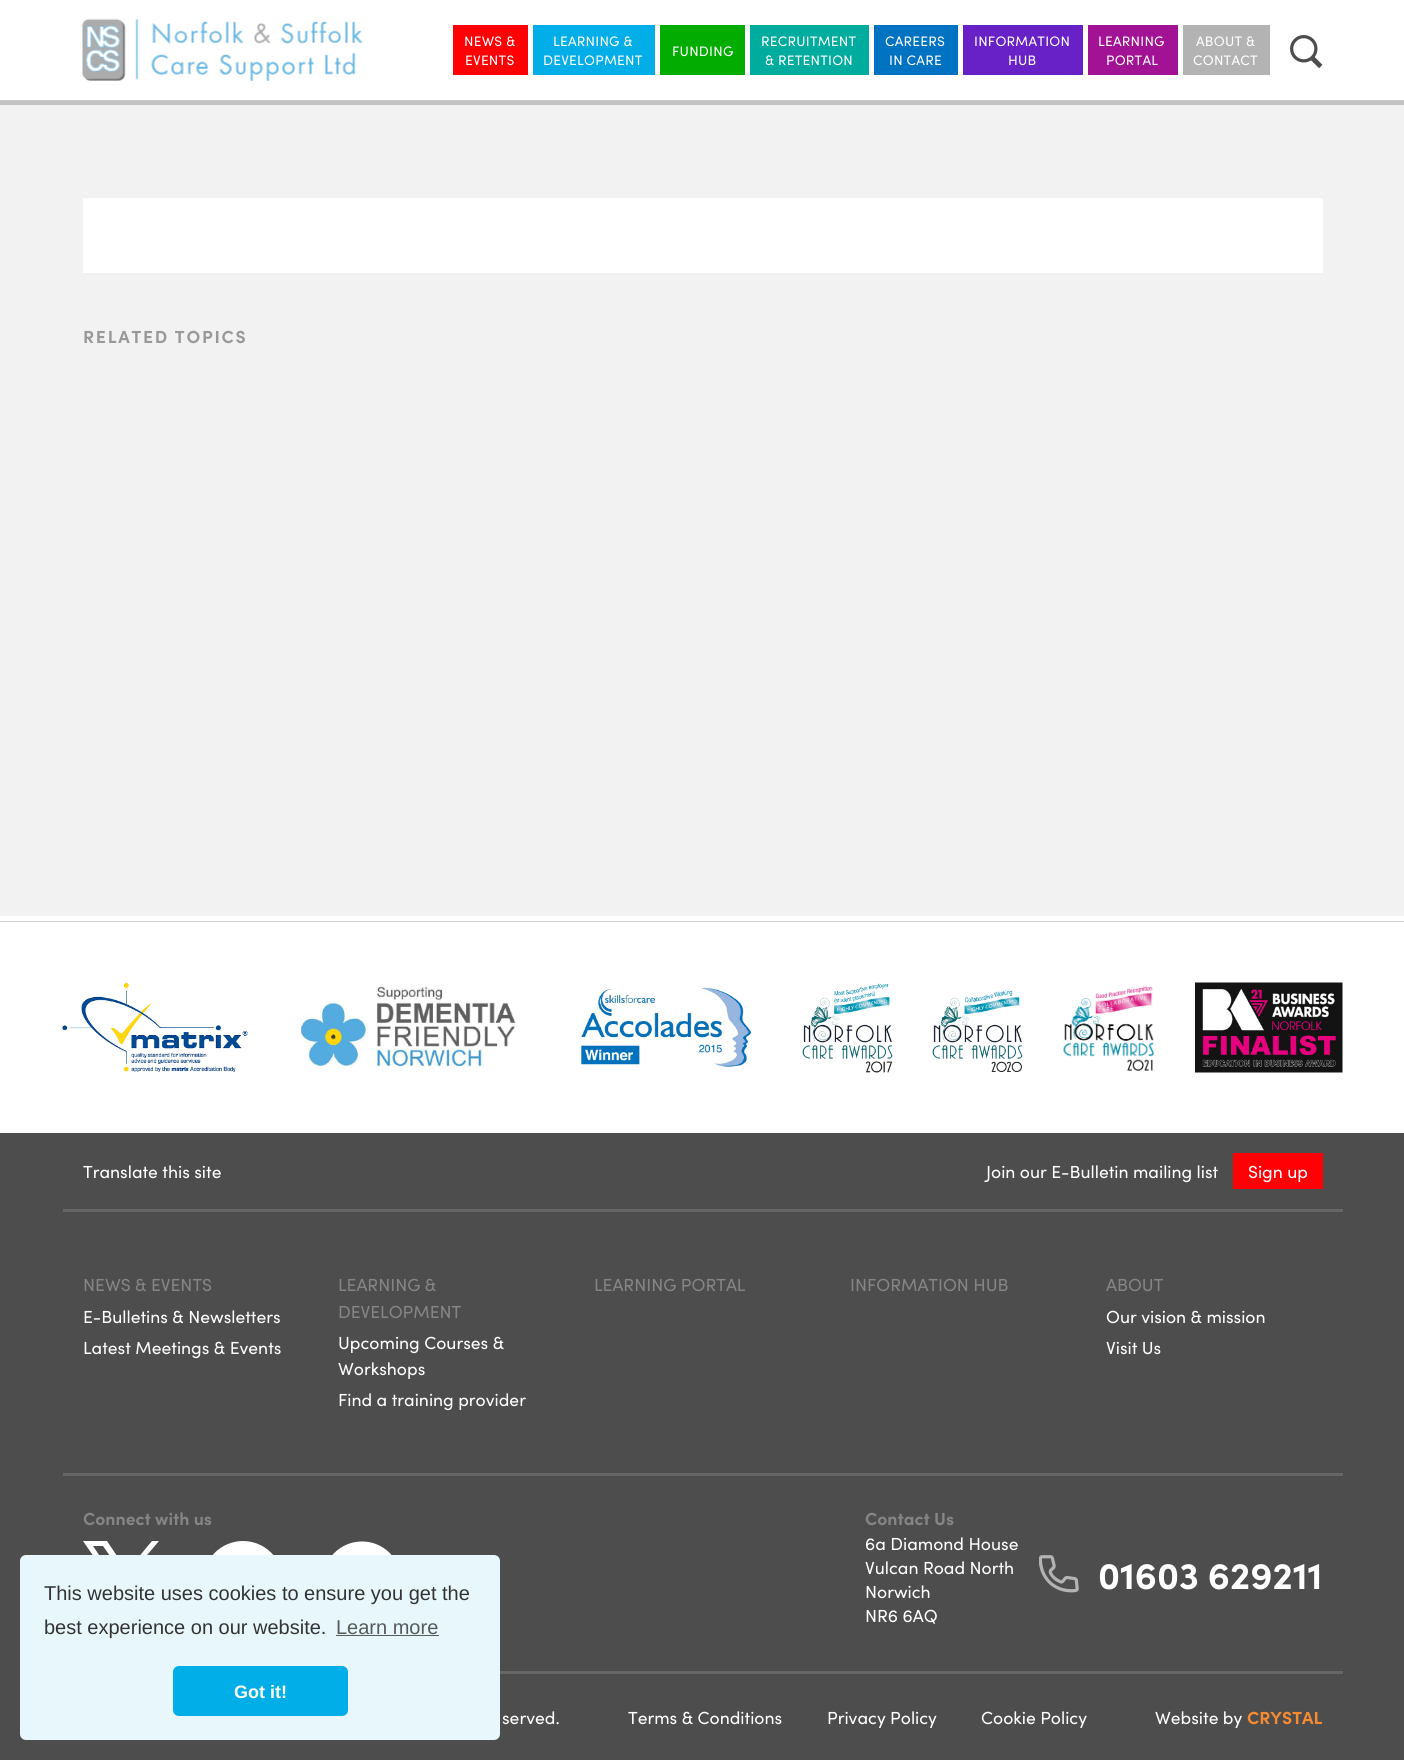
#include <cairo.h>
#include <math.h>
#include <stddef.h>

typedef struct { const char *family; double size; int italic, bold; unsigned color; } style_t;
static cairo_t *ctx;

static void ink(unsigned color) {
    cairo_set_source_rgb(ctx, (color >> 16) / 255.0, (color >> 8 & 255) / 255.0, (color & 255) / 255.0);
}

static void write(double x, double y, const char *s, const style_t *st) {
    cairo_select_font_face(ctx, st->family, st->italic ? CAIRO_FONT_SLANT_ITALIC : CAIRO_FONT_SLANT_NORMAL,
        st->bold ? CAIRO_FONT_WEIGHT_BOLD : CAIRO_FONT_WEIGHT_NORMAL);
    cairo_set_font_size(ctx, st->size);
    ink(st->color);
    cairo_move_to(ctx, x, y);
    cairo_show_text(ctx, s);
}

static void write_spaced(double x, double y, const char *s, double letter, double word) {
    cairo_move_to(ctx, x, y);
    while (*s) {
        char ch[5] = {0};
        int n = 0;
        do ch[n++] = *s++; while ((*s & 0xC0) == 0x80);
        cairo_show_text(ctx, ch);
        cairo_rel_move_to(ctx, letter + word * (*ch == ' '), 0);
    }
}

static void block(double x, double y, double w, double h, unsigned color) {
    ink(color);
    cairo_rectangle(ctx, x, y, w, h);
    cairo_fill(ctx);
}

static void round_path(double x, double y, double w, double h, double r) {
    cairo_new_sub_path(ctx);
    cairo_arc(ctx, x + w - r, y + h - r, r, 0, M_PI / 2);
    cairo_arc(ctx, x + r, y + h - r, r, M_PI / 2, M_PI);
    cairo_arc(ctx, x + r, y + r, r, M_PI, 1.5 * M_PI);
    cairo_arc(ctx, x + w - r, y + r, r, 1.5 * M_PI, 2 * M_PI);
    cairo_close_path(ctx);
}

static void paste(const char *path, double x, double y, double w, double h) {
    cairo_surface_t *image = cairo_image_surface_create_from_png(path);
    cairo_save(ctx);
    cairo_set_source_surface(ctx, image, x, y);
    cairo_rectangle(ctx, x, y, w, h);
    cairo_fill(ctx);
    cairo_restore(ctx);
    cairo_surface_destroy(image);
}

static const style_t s1 = {"Sofia", 17.5, 0, 0, 0xffffff};
static const style_t s2 = {"Sofia", 17.5, 0, 0, 0x858585};
static const style_t s3 = {"Sofia", 17.5, 0, 1, 0x858585};
static const style_t s4 = {"Sofia", 37.5, 0, 1, 0xffffff};
static const style_t s5 = {"Sofia", 17.5, 0, 1, 0xf78b31};
static const style_t s6 = {"Liberation Sans", 20, 0, 0, 0x333333};
static const style_t s7 = {"Liberation Sans", 20, 0, 0, 0x575a5b};
static const style_t s8 = {"Liberation Sans", 18, 0, 1, 0xffffff};

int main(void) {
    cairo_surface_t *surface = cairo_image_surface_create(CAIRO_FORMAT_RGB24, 1404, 1760);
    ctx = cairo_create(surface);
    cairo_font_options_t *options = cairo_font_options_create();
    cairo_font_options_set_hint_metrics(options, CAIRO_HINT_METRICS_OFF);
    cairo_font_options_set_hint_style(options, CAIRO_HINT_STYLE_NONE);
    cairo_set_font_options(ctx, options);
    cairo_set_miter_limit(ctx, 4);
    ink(0xffffff);
    cairo_paint(ctx);
    block(0, 101, 1404, 4, 0xc2c2c2);
    block(0, 100, 1404, 1, 0xcccccc);
    paste("pic1.png", 82, 18, 281, 63);
    block(453, 25, 75, 50, 0xff0005);
    cairo_select_font_face(ctx, "Sofia", CAIRO_FONT_SLANT_NORMAL, CAIRO_FONT_WEIGHT_NORMAL);
    cairo_set_font_size(ctx, 13.75);
    ink(0xffffff);
    write_spaced(464, 46, "NEWS &", 0.25, 0);
    write_spaced(465, 65, "EVENTS", 0.25, 0);
    block(533, 25, 122, 50, 0x01aee8);
    ink(0xffffff);
    write_spaced(553, 46, "LEARNING &", 0.25, 0);
    write_spaced(543, 65, "DEVELOPMENT", 0.25, 0);
    block(660, 25, 85, 50, 0x02ac00);
    ink(0xffffff);
    write_spaced(672, 56, "FUNDING", 0.25, 0);
    block(750, 25, 119, 50, 0x00ac9d);
    ink(0xffffff);
    write_spaced(761, 46, "RECRUITMENT", 0.25, 0);
    write_spaced(765, 65, "& RETENTION", 0.25, 0);
    block(874, 25, 84, 50, 0x0072c2);
    ink(0xffffff);
    write_spaced(885, 46, "CAREERS", 0.25, 0);
    write_spaced(889, 65, "IN CARE", 0.25, 0);
    block(963, 25, 120, 50, 0x6821c6);
    ink(0xffffff);
    write_spaced(974, 46, "INFORMATION", 0.25, 0);
    write_spaced(1008, 65, "HUB", 0.25, 0);
    block(1088, 25, 90, 50, 0xa21294);
    ink(0xffffff);
    write_spaced(1098, 46, "LEARNING", 0.25, 0);
    write_spaced(1106, 65, "PORTAL", 0.25, 0);
    block(1183, 25, 87, 50, 0xb3b3b3);
    ink(0xffffff);
    write_spaced(1196, 46, "ABOUT &", 0.25, 0);
    write_spaced(1193, 65, "CONTACT", 0.25, 0);
    paste("pic2.png", 1290, 35, 33, 34);
    block(0, 105, 1404, 811, 0xf2f2f2);
    block(83, 198, 1240, 75, 0xffffff);
    cairo_select_font_face(ctx, "Sofia", CAIRO_FONT_SLANT_NORMAL, CAIRO_FONT_WEIGHT_BOLD);
    cairo_set_font_size(ctx, 17.5);
    ink(0x999999);
    write_spaced(83, 343, "RELATED TOPICS", 1.75, 0);
    block(0, 921, 1404, 1, 0xcccccc);
    paste("pic3.png", 62, 982, 186, 91);
    paste("pic4.png", 301, 986, 215, 81);
    paste("pic5.png", 581, 987, 171, 80);
    paste("pic6.png", 802, 983, 91, 90);
    paste("pic7.png", 932, 990, 91, 82);
    paste("pic8.png", 1063, 986, 92, 85);
    paste("pic9.png", 1195, 982, 148, 91);
    block(0, 1133, 1404, 627, 0x4d4d4d);
    block(63, 1209, 1280, 3, 0x666666);
    write(83, 1178, "Translate this site", &s1);
    write(986, 1178, "Join our E-Bulletin mailing list", &s1);
    block(1233, 1153, 90, 36, 0xff0005);
    write(1248, 1178, "Sign up", &s1);
    write(83, 1291, "NEWS & EVENTS", &s2);
    write(83, 1323, "E-Bulletins & Newsletters", &s1);
    write(83, 1354, "Latest Meetings & Events", &s1);
    write(338, 1291, "LEARNING &", &s2);
    write(338, 1318, "DEVELOPMENT", &s2);
    write(338, 1349, "Upcoming Courses &", &s1);
    write(338, 1375, "Workshops", &s1);
    write(338, 1406, "Find a training provider", &s1);
    write(594, 1291, "LEARNING PORTAL", &s2);
    write(850, 1291, "INFORMATION HUB", &s2);
    write(1106, 1291, "ABOUT", &s2);
    write(1106, 1323, "Our vision & mission", &s1);
    write(1106, 1354, "Visit Us", &s1);
    block(63, 1473, 1280, 3, 0x666666);
    write(83, 1525, "Connect with us", &s3);
    ink(0xffffff);
    cairo_new_path(ctx);
    cairo_move_to(ctx, 130, 1575);
    cairo_line_to(ctx, 159, 1541);
    cairo_line_to(ctx, 152, 1541);
    cairo_line_to(ctx, 127, 1571);
    cairo_line_to(ctx, 107, 1541);
    cairo_line_to(ctx, 83, 1541);
    cairo_line_to(ctx, 114, 1586);
    cairo_line_to(ctx, 83, 1621);
    cairo_line_to(ctx, 90, 1621);
    cairo_line_to(ctx, 117, 1590);
    cairo_line_to(ctx, 138, 1621);
    cairo_line_to(ctx, 162, 1621);
    cairo_close_path(ctx);
    cairo_move_to(ctx, 120, 1586);
    cairo_line_to(ctx, 93, 1546);
    cairo_line_to(ctx, 103, 1546);
    cairo_line_to(ctx, 152, 1616);
    cairo_line_to(ctx, 142, 1616);
    cairo_close_path(ctx);
    cairo_fill(ctx);
    cairo_new_path(ctx);
    cairo_move_to(ctx, 243, 1541);
    cairo_curve_to(ctx, 265, 1541, 283, 1559, 283, 1581);
    cairo_curve_to(ctx, 283, 1602, 268, 1618, 249, 1621);
    cairo_line_to(ctx, 249, 1593);
    cairo_line_to(ctx, 258, 1593);
    cairo_line_to(ctx, 260, 1582);
    cairo_line_to(ctx, 249, 1582);
    cairo_curve_to(ctx, 249, 1570, 247, 1568, 260, 1568);
    cairo_line_to(ctx, 260, 1558);
    cairo_curve_to(ctx, 250, 1557, 238, 1556, 235, 1569);
    cairo_line_to(ctx, 235, 1582);
    cairo_line_to(ctx, 225, 1582);
    cairo_line_to(ctx, 225, 1593);
    cairo_line_to(ctx, 235, 1593);
    cairo_line_to(ctx, 235, 1621);
    cairo_curve_to(ctx, 217, 1617, 203, 1601, 203, 1581);
    cairo_curve_to(ctx, 203, 1559, 221, 1541, 243, 1541);
    cairo_close_path(ctx);
    cairo_fill(ctx);
    paste("pic10.png", 332, 1541, 60, 14);
    write(865, 1525, "Contact Us", &s3);
    write(865, 1550, "6a Diamond House", &s1);
    write(865, 1574, "Vulcan Road North", &s1);
    write(865, 1598, "Norwich", &s1);
    write(865, 1622, "NR6 6AQ", &s1);
    paste("pic11.png", 1039, 1555, 40, 38);
    write(1098, 1589, "01603 629211", &s4);
    block(500, 1671, 843, 3, 0x666666);
    write(502, 1724, "served.", &s1);
    write(628, 1724, "Terms & Conditions", &s1);
    write(827, 1724, "Privacy Policy", &s1);
    write(981, 1724, "Cookie Policy", &s1);
    write(1155, 1724, "Website by", &s1);
    write(1247, 1724, "CRYSTAL", &s5);
    ink(0xe8f7fc);
    round_path(20, 1555, 480, 185, 6);
    cairo_fill(ctx);
    write(44, 1600, "This website uses cookies to ensure you get the", &s6);
    write(44, 1634, "best experience on our website.", &s6);
    write(336, 1634, "Learn more", &s7);
    block(336, 1635, 103, 1, 0x575a5b);
    ink(0x01aee8);
    round_path(173, 1666, 175, 50, 6);
    cairo_fill(ctx);
    write(234, 1698, "Got it!", &s8);
    cairo_surface_write_to_png(surface, "screenshot.png");
    cairo_font_options_destroy(options);
    cairo_destroy(ctx);
    cairo_surface_destroy(surface);
    return 0;
}
